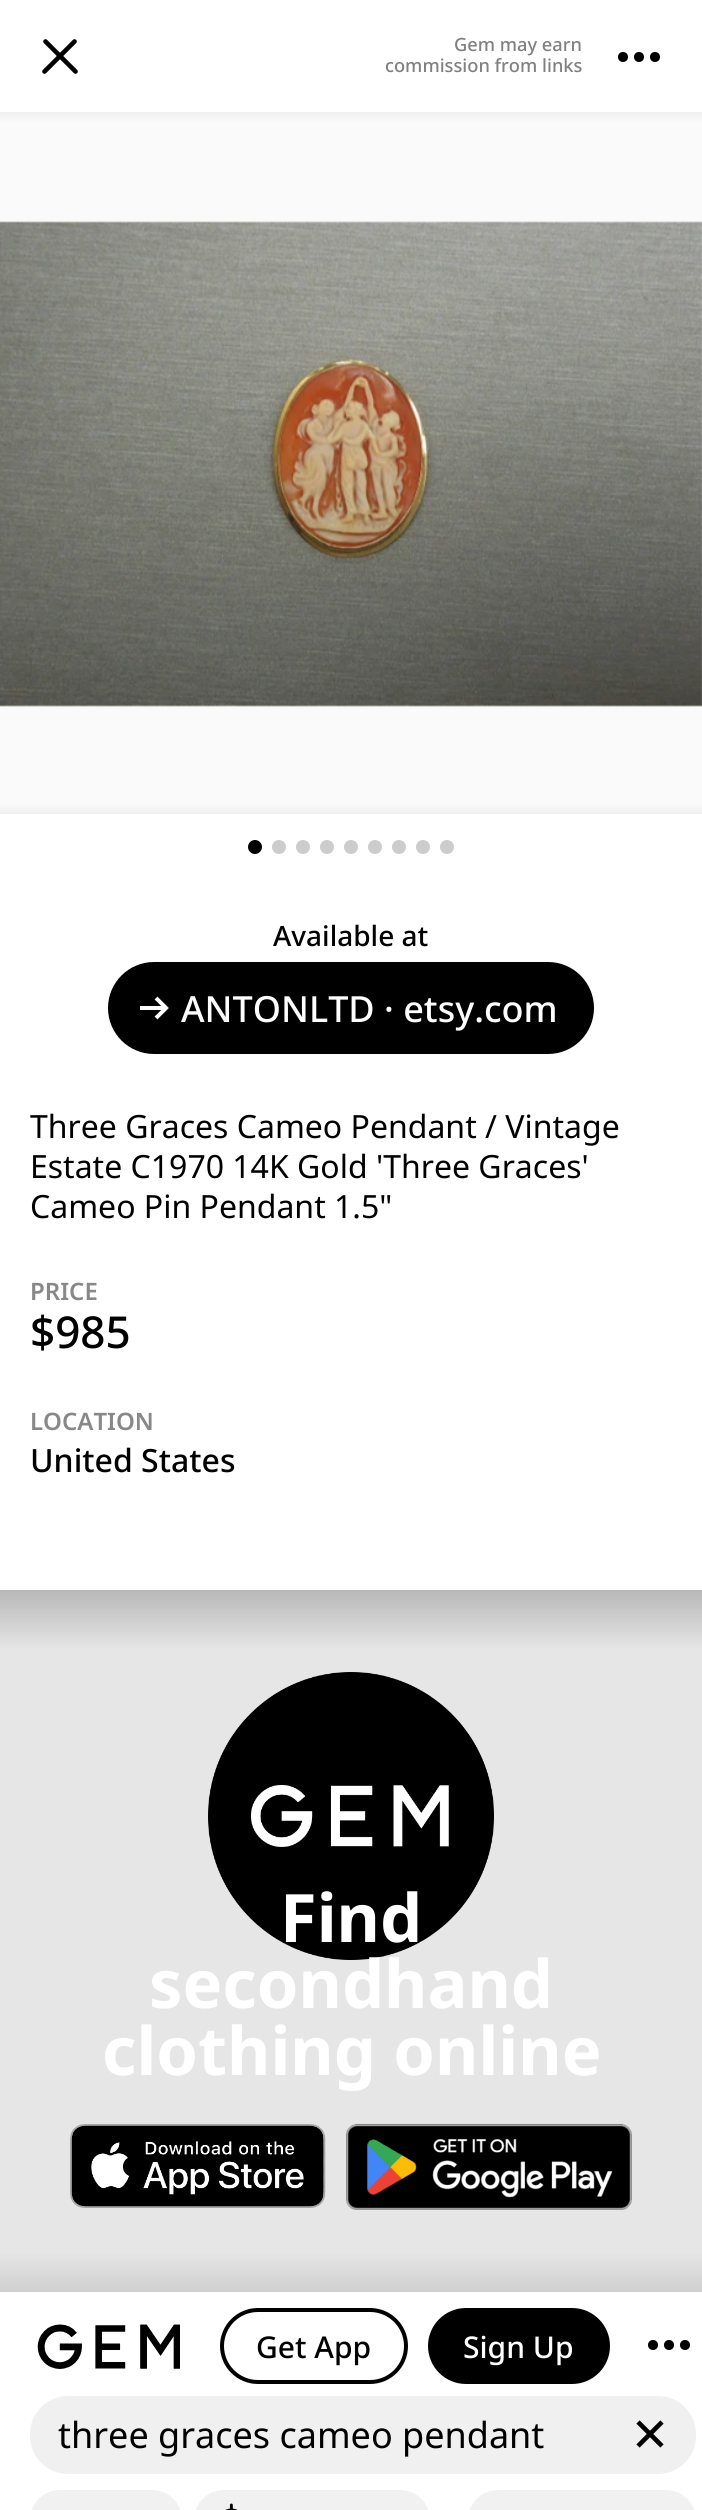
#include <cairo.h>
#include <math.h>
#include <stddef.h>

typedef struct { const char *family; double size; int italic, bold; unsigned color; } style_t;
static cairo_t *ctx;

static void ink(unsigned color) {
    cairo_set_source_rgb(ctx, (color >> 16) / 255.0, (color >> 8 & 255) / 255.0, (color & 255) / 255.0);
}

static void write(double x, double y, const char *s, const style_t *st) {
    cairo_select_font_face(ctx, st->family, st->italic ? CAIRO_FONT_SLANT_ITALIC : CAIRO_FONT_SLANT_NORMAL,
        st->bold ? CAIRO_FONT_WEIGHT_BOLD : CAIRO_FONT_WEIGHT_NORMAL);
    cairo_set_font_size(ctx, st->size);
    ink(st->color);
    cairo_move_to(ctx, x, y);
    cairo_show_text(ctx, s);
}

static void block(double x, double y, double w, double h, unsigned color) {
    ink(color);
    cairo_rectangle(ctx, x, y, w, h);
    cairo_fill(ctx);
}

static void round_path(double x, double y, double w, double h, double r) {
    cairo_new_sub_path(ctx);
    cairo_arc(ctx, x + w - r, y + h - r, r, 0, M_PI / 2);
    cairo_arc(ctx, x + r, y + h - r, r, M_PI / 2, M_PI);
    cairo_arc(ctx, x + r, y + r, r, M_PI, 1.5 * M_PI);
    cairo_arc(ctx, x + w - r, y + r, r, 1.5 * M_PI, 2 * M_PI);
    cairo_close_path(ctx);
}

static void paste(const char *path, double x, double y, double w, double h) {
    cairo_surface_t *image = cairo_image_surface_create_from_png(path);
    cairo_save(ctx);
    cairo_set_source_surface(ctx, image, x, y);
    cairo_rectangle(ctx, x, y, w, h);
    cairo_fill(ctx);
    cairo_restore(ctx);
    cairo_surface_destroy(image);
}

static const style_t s1 = {"Noto Sans Medium", 18.25, 0, 0, 0x808080};
static const style_t s2 = {"Noto Sans Medium", 28, 0, 0, 0x000000};
static const style_t s3 = {"Noto Sans Medium", 36, 0, 0, 0xffffff};
static const style_t s4 = {"Noto Sans", 32, 0, 0, 0x000000};
static const style_t s5 = {"Noto Sans SemiBold", 24, 0, 0, 0x888888};
static const style_t s6 = {"Noto Sans Medium", 44, 0, 0, 0x000000};
static const style_t s7 = {"Noto Sans Medium", 32, 0, 0, 0x000000};
static const style_t s8 = {"Noto Sans", 66.75, 0, 1, 0xffffff};
static const style_t s9 = {"Noto Sans Medium", 30, 0, 0, 0x000000};
static const style_t s10 = {"Noto Sans Medium", 30, 0, 0, 0xffffff};
static const style_t s11 = {"Noto Sans", 36, 0, 0, 0x000000};

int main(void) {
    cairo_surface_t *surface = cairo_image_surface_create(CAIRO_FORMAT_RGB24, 702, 2510);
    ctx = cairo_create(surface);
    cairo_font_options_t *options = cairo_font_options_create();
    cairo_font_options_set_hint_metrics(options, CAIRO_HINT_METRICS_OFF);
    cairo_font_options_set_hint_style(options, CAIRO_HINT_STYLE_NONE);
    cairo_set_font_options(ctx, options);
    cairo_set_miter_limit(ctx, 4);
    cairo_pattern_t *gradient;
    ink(0xffffff);
    cairo_paint(ctx);
    cairo_new_path(ctx);
    cairo_move_to(ctx, 44.5, 71.5);
    cairo_line_to(ctx, 74.5, 41.5);
    cairo_move_to(ctx, 75.5, 71.5);
    cairo_line_to(ctx, 45.5, 41.5);
    ink(0x000000);
    cairo_set_line_width(ctx, 4.6);
    cairo_set_line_cap(ctx, CAIRO_LINE_CAP_ROUND);
    cairo_stroke(ctx);
    write(454, 51, "Gem may earn", &s1);
    write(385, 72, "commission from links", &s1);
    ink(0x000000);
    cairo_new_path(ctx);
    cairo_arc(ctx, 623, 57, 5, 0, 2 * M_PI);
    cairo_fill(ctx);
    cairo_arc(ctx, 639, 57, 5, 0, 2 * M_PI);
    cairo_fill(ctx);
    cairo_arc(ctx, 655, 57, 5, 0, 2 * M_PI);
    cairo_fill(ctx);
    gradient = cairo_pattern_create_linear(351, 112, 351, 122);
    cairo_pattern_add_color_stop_rgba(gradient, 0, 0.941, 0.941, 0.941, 1);
    cairo_pattern_add_color_stop_rgba(gradient, 1, 0.98, 0.98, 0.98, 1);
    cairo_set_source(ctx, gradient);
    cairo_pattern_destroy(gradient);
    cairo_rectangle(ctx, 0, 112, 702, 10);
    cairo_fill(ctx);
    block(0, 122, 702, 682, 0xfafafa);
    paste("pic1.png", 0, 221, 702, 486);
    gradient = cairo_pattern_create_linear(351, 804, 351, 814);
    cairo_pattern_add_color_stop_rgba(gradient, 0, 0.98, 0.98, 0.98, 1);
    cairo_pattern_add_color_stop_rgba(gradient, 1, 0.941, 0.941, 0.941, 1);
    cairo_set_source(ctx, gradient);
    cairo_pattern_destroy(gradient);
    cairo_rectangle(ctx, 0, 804, 702, 10);
    cairo_fill(ctx);
    ink(0x000000);
    cairo_arc(ctx, 255, 847, 7, 0, 2 * M_PI);
    cairo_fill(ctx);
    ink(0xcccccc);
    cairo_arc(ctx, 279, 847, 7, 0, 2 * M_PI);
    cairo_fill(ctx);
    cairo_arc(ctx, 303, 847, 7, 0, 2 * M_PI);
    cairo_fill(ctx);
    cairo_arc(ctx, 327, 847, 7, 0, 2 * M_PI);
    cairo_fill(ctx);
    cairo_arc(ctx, 351, 847, 7, 0, 2 * M_PI);
    cairo_fill(ctx);
    cairo_arc(ctx, 375, 847, 7, 0, 2 * M_PI);
    cairo_fill(ctx);
    cairo_arc(ctx, 399, 847, 7, 0, 2 * M_PI);
    cairo_fill(ctx);
    cairo_arc(ctx, 423, 847, 7, 0, 2 * M_PI);
    cairo_fill(ctx);
    cairo_arc(ctx, 447, 847, 7, 0, 2 * M_PI);
    cairo_fill(ctx);
    write(273, 946, "Available at", &s2);
    round_path(108, 962, 486, 92, 46);
    cairo_fill(ctx);
    cairo_new_path(ctx);
    cairo_move_to(ctx, 140, 1008);
    cairo_line_to(ctx, 166, 1008);
    cairo_move_to(ctx, 156, 998);
    cairo_line_to(ctx, 166, 1008);
    cairo_line_to(ctx, 156, 1018);
    ink(0xffffff);
    cairo_set_line_width(ctx, 4);
    cairo_set_line_cap(ctx, CAIRO_LINE_CAP_BUTT);
    cairo_stroke(ctx);
    write(181, 1022, "ANTONLTD · etsy.com", &s3);
    write(30, 1138, "Three Graces Cameo Pendant / Vintage", &s4);
    write(30, 1178, "Estate C1970 14K Gold 'Three Graces'", &s4);
    write(30, 1218, "Cameo Pin Pendant 1.5\"", &s4);
    write(30, 1300, "PRICE", &s5);
    write(30, 1348, "$985", &s6);
    write(30, 1430, "LOCATION", &s5);
    write(30, 1472, "United States", &s7);
    gradient = cairo_pattern_create_linear(351, 1590, 351, 1650);
    cairo_pattern_add_color_stop_rgba(gradient, 0, 0.722, 0.722, 0.722, 1);
    cairo_pattern_add_color_stop_rgba(gradient, 1, 0.902, 0.902, 0.902, 1);
    cairo_set_source(ctx, gradient);
    cairo_pattern_destroy(gradient);
    cairo_rectangle(ctx, 0, 1590, 702, 60);
    cairo_fill(ctx);
    block(0, 1650, 702, 602, 0xe6e6e6);
    paste("pic2.png", 208, 1672, 286, 288);
    write(280, 1942, "Find", &s8);
    write(149, 2008, "secondhand", &s8);
    write(102, 2075, "clothing online", &s8);
    paste("pic3.png", 70, 2124, 256, 84);
    paste("pic4.png", 346, 2123, 286, 87);
    gradient = cairo_pattern_create_linear(351, 2252, 351, 2292);
    cairo_pattern_add_color_stop_rgba(gradient, 0, 0.902, 0.902, 0.902, 1);
    cairo_pattern_add_color_stop_rgba(gradient, 1, 0.812, 0.812, 0.812, 1);
    cairo_set_source(ctx, gradient);
    cairo_pattern_destroy(gradient);
    cairo_rectangle(ctx, 0, 2252, 702, 40);
    cairo_fill(ctx);
    paste("pic5.png", 37, 2324, 143, 45);
    round_path(222, 2310, 184, 72, 36);
    ink(0x000000);
    cairo_stroke(ctx);
    write(256, 2358, "Get App", &s9);
    round_path(430, 2310, 178, 72, 36);
    cairo_fill_preserve(ctx);
    cairo_stroke(ctx);
    write(463, 2358, "Sign Up", &s10);
    ink(0x000000);
    cairo_new_path(ctx);
    cairo_arc(ctx, 653, 2345, 5, 0, 2 * M_PI);
    cairo_fill(ctx);
    cairo_arc(ctx, 669, 2345, 5, 0, 2 * M_PI);
    cairo_fill(ctx);
    cairo_arc(ctx, 685, 2345, 5, 0, 2 * M_PI);
    cairo_fill(ctx);
    ink(0xf0f0f0);
    round_path(30, 2396, 666, 78, 38);
    cairo_fill(ctx);
    write(58, 2448, "three graces cameo pendant", &s11);
    cairo_new_path(ctx);
    cairo_move_to(ctx, 638, 2446);
    cairo_line_to(ctx, 662, 2422);
    cairo_move_to(ctx, 662, 2446);
    cairo_line_to(ctx, 638, 2422);
    cairo_set_line_width(ctx, 4.6);
    cairo_stroke(ctx);
    ink(0xf1f1f1);
    round_path(30, 2490, 152, 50, 30);
    cairo_fill(ctx);
    round_path(194, 2490, 236, 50, 30);
    cairo_fill(ctx);
    paste("pic6.png", 225, 2503, 13, 7);
    round_path(468, 2490, 228, 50, 30);
    cairo_fill(ctx);
    cairo_surface_write_to_png(surface, "screenshot.png");
    cairo_font_options_destroy(options);
    cairo_destroy(ctx);
    cairo_surface_destroy(surface);
    return 0;
}
